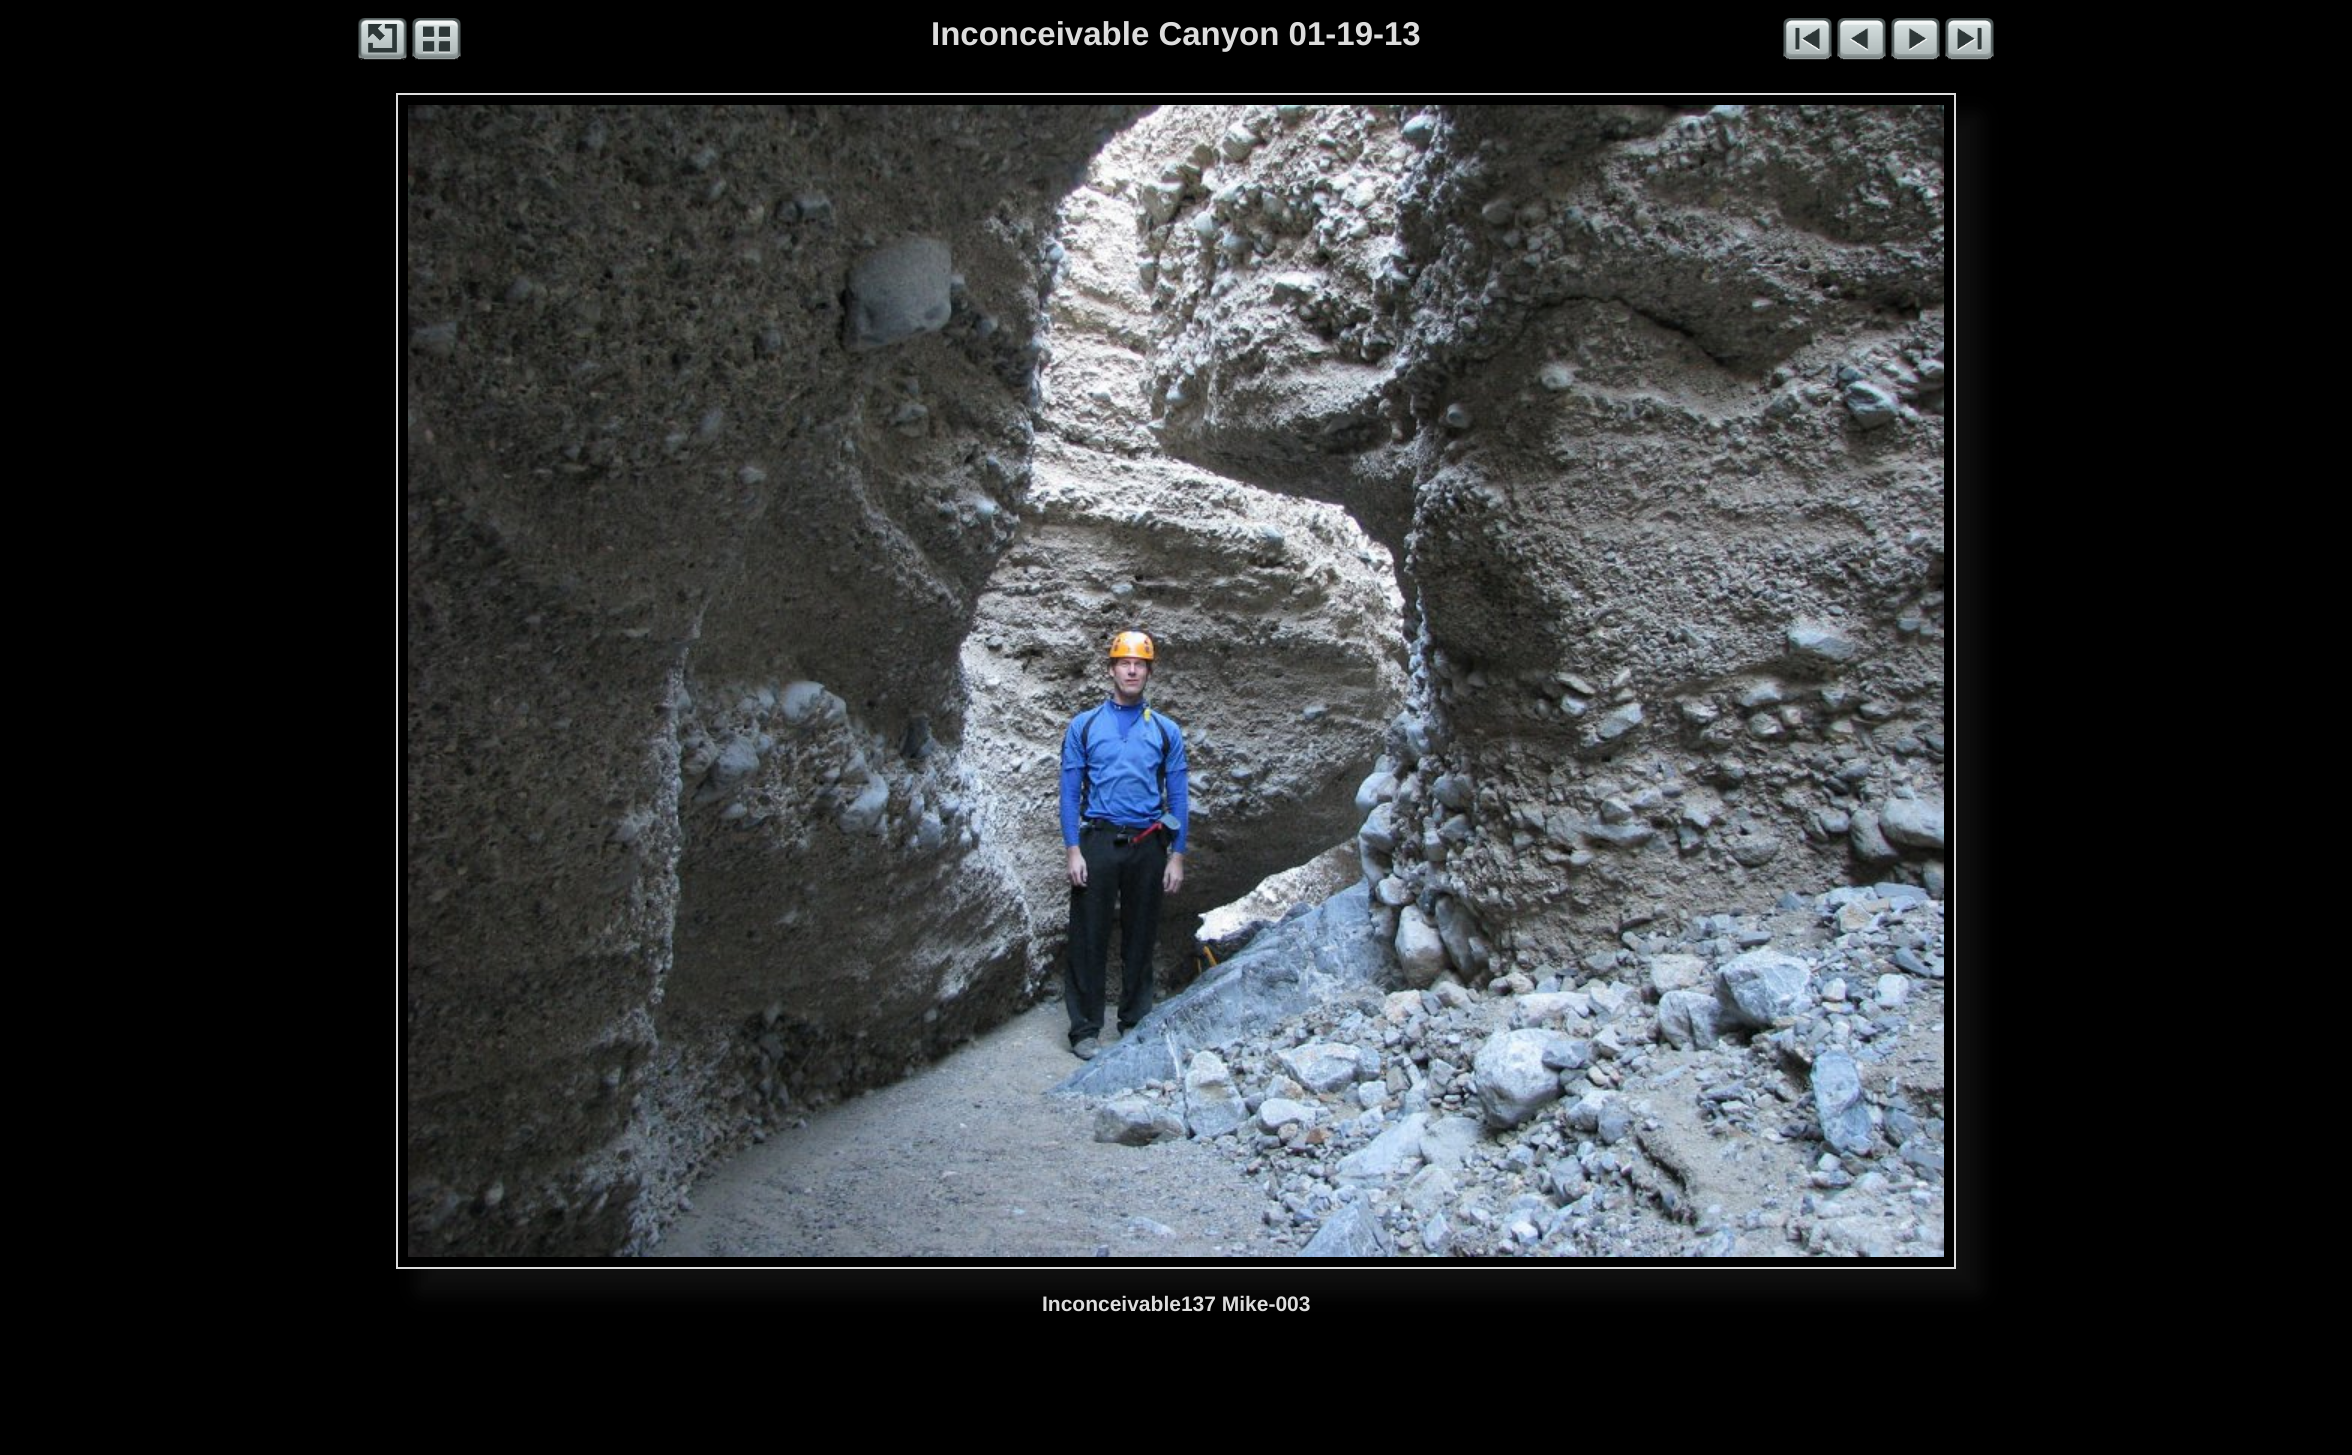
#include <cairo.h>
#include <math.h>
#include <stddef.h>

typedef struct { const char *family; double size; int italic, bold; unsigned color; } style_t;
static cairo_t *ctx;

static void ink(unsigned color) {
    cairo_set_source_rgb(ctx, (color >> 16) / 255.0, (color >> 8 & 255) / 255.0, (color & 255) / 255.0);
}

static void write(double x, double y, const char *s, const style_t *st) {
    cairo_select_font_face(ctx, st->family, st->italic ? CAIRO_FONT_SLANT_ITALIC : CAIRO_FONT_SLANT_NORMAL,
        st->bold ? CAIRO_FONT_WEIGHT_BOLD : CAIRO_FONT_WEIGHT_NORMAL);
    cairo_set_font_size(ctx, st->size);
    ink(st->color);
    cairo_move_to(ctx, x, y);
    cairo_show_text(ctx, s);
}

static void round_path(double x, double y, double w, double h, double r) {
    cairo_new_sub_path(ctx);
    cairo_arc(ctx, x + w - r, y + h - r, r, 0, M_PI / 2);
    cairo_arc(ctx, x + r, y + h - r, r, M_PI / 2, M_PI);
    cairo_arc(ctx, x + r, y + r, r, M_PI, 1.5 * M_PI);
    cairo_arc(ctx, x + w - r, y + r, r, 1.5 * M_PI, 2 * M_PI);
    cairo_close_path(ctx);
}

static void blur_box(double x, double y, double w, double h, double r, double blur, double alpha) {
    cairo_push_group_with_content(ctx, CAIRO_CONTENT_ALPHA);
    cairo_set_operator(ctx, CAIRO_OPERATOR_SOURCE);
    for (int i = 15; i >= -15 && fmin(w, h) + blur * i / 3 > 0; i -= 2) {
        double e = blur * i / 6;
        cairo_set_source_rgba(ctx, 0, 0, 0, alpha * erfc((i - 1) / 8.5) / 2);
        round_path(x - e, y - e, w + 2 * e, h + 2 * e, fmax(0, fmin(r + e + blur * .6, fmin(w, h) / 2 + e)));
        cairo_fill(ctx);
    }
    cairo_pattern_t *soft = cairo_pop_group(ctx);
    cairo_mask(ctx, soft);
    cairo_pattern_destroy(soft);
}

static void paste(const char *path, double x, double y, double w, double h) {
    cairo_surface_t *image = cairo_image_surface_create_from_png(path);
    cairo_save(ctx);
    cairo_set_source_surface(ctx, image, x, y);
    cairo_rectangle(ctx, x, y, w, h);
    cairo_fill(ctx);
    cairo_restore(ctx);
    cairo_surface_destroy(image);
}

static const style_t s1 = {"Liberation Sans", 33, 0, 1, 0xdddddd};
static const style_t s2 = {"Liberation Sans", 21, 0, 1, 0xdddddd};

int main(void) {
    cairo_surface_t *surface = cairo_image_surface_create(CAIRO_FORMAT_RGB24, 2352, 1455);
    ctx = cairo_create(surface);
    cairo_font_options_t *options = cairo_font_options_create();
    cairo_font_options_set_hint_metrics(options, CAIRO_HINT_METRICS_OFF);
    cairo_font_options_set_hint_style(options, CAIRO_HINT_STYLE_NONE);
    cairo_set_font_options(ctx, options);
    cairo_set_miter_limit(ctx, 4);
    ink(0x000000);
    cairo_paint(ctx);
    paste("pic1.png", 358, 18, 49, 42);
    paste("pic2.png", 412, 18, 49, 42);
    write(931, 45, "Inconceivable Canyon 01-19-13", &s1);
    paste("pic3.png", 1783, 18, 49, 42);
    paste("pic4.png", 1837, 18, 49, 42);
    paste("pic5.png", 1891, 18, 49, 42);
    paste("pic6.png", 1945, 18, 49, 42);
    cairo_save(ctx);
    cairo_set_fill_rule(ctx, CAIRO_FILL_RULE_EVEN_ODD);
    cairo_new_path(ctx);
    cairo_move_to(ctx, 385, 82);
    cairo_line_to(ctx, 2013, 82);
    cairo_line_to(ctx, 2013, 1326);
    cairo_line_to(ctx, 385, 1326);
    cairo_close_path(ctx);
    cairo_move_to(ctx, 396, 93);
    cairo_line_to(ctx, 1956, 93);
    cairo_line_to(ctx, 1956, 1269);
    cairo_line_to(ctx, 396, 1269);
    cairo_close_path(ctx);
    cairo_clip(ctx);
    ink(0x333333);
    blur_box(419, 116, 1560, 1176, 0, 11, 0.3);
    cairo_restore(ctx);
    cairo_rectangle(ctx, 397, 94, 1558, 1174);
    cairo_stroke(ctx);
    paste("pic7.png", 408, 105, 1536, 1152);
    write(1042, 1311, "Inconceivable137 Mike-003", &s2);
    cairo_surface_write_to_png(surface, "screenshot.png");
    cairo_font_options_destroy(options);
    cairo_destroy(ctx);
    cairo_surface_destroy(surface);
    return 0;
}
